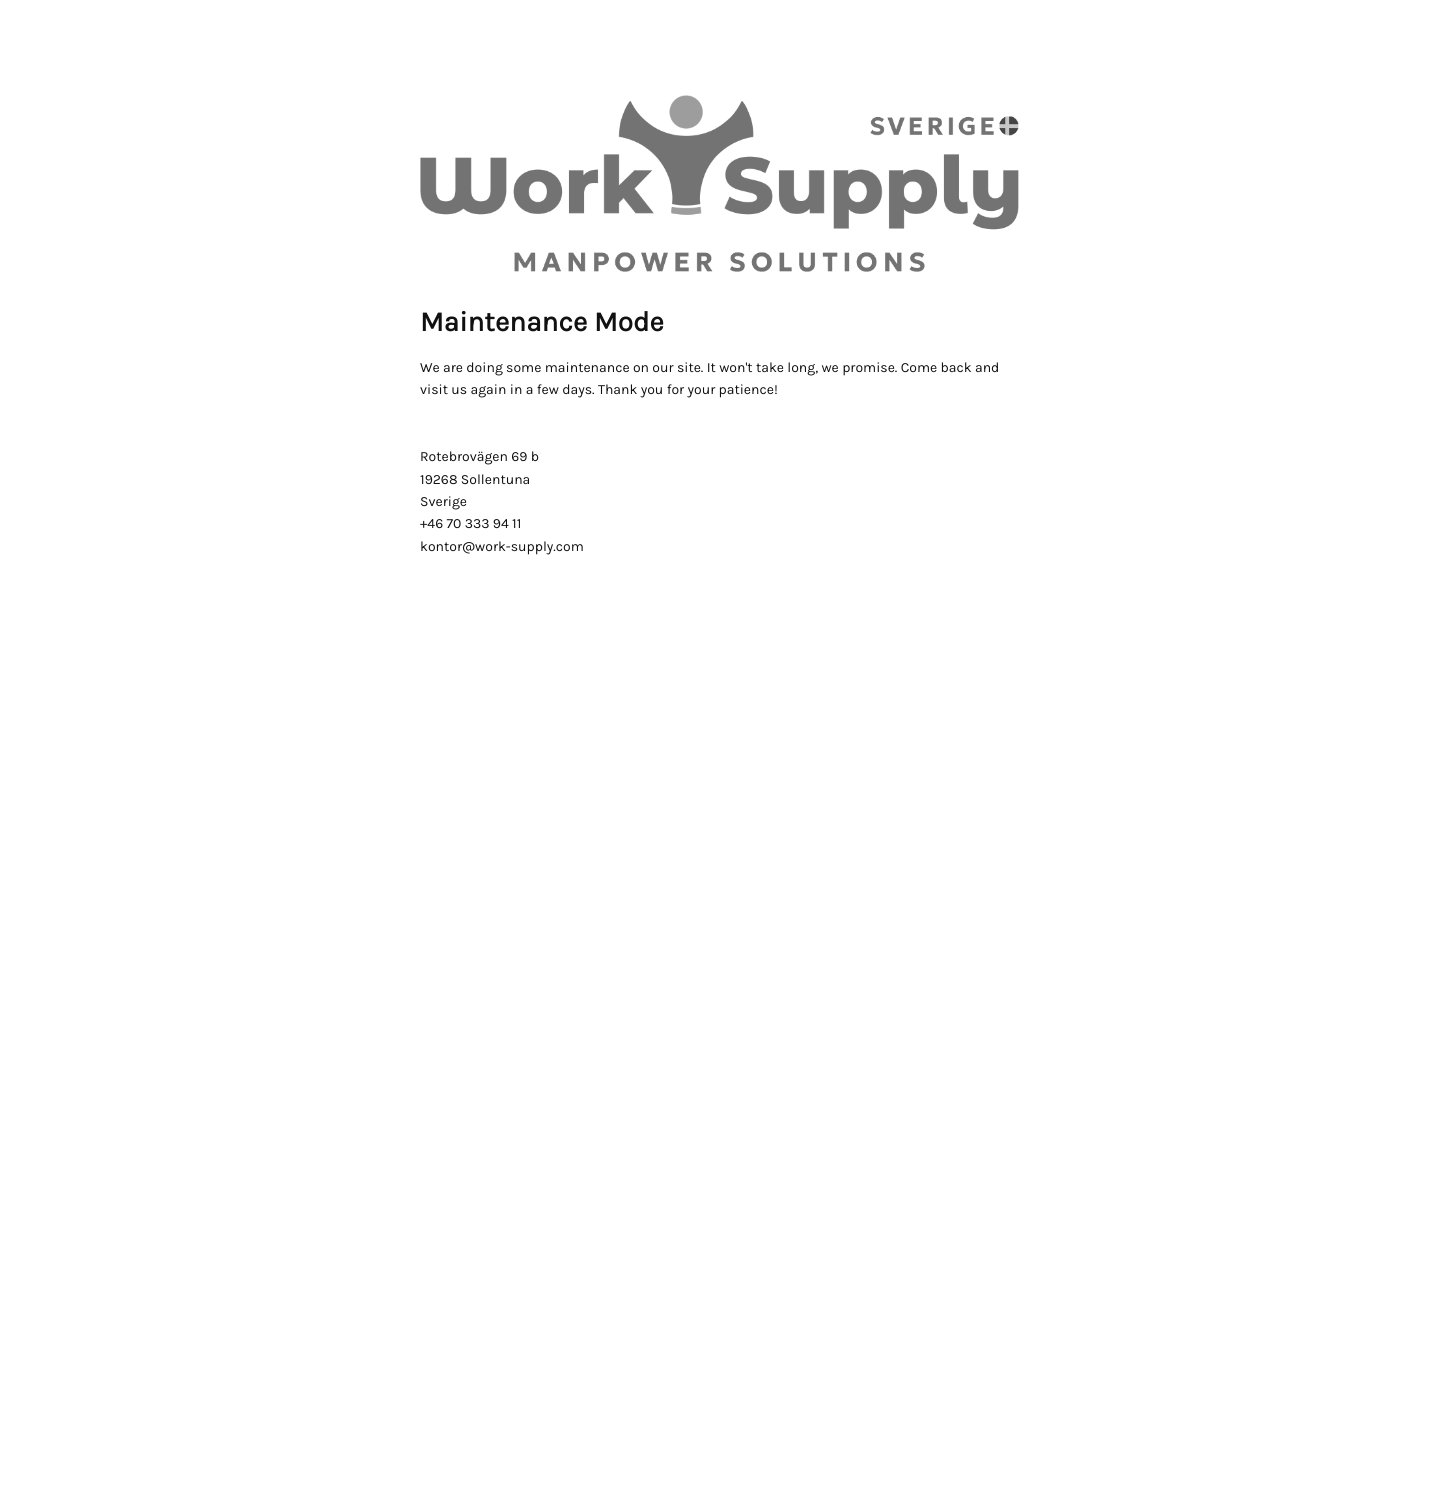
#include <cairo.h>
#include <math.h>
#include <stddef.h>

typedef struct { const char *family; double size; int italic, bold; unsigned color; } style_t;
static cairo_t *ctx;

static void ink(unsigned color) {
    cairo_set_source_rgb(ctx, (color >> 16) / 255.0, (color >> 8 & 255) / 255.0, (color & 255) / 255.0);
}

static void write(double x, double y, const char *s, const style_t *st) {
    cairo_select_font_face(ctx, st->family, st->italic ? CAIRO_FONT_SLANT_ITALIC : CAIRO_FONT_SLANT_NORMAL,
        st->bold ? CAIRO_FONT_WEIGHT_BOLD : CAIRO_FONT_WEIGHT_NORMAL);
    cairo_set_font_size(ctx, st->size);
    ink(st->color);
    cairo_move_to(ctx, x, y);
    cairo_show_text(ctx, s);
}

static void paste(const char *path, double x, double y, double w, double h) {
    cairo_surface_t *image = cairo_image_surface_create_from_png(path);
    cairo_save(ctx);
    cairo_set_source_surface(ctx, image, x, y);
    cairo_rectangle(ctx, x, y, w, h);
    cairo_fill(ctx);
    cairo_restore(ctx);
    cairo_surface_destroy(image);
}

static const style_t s1 = {"Karla", 28, 0, 1, 0x111111};
static const style_t s2 = {"Karla", 14, 0, 0, 0x111111};

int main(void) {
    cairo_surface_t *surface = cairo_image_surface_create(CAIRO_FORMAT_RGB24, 1439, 1493);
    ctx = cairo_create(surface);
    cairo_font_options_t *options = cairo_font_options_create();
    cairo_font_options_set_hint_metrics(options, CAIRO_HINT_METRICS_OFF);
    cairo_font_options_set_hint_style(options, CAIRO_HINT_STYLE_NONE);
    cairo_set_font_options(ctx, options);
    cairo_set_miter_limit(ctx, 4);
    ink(0xffffff);
    cairo_paint(ctx);
    paste("pic1.png", 420, 95, 599, 177);
    write(420, 331, "Maintenance Mode", &s1);
    write(420, 372, "We are doing some maintenance on our site. It won't take long, we promise. Come back and", &s2);
    write(420, 394, "visit us again in a few days. Thank you for your patience!", &s2);
    write(420, 461, "Rotebrovägen 69 b", &s2);
    write(420, 484, "19268 Sollentuna", &s2);
    write(420, 506, "Sverige", &s2);
    write(420, 528, "+46 70 333 94 11", &s2);
    write(420, 551, "kontor@work-supply.com", &s2);
    cairo_surface_write_to_png(surface, "screenshot.png");
    cairo_font_options_destroy(options);
    cairo_destroy(ctx);
    cairo_surface_destroy(surface);
    return 0;
}
